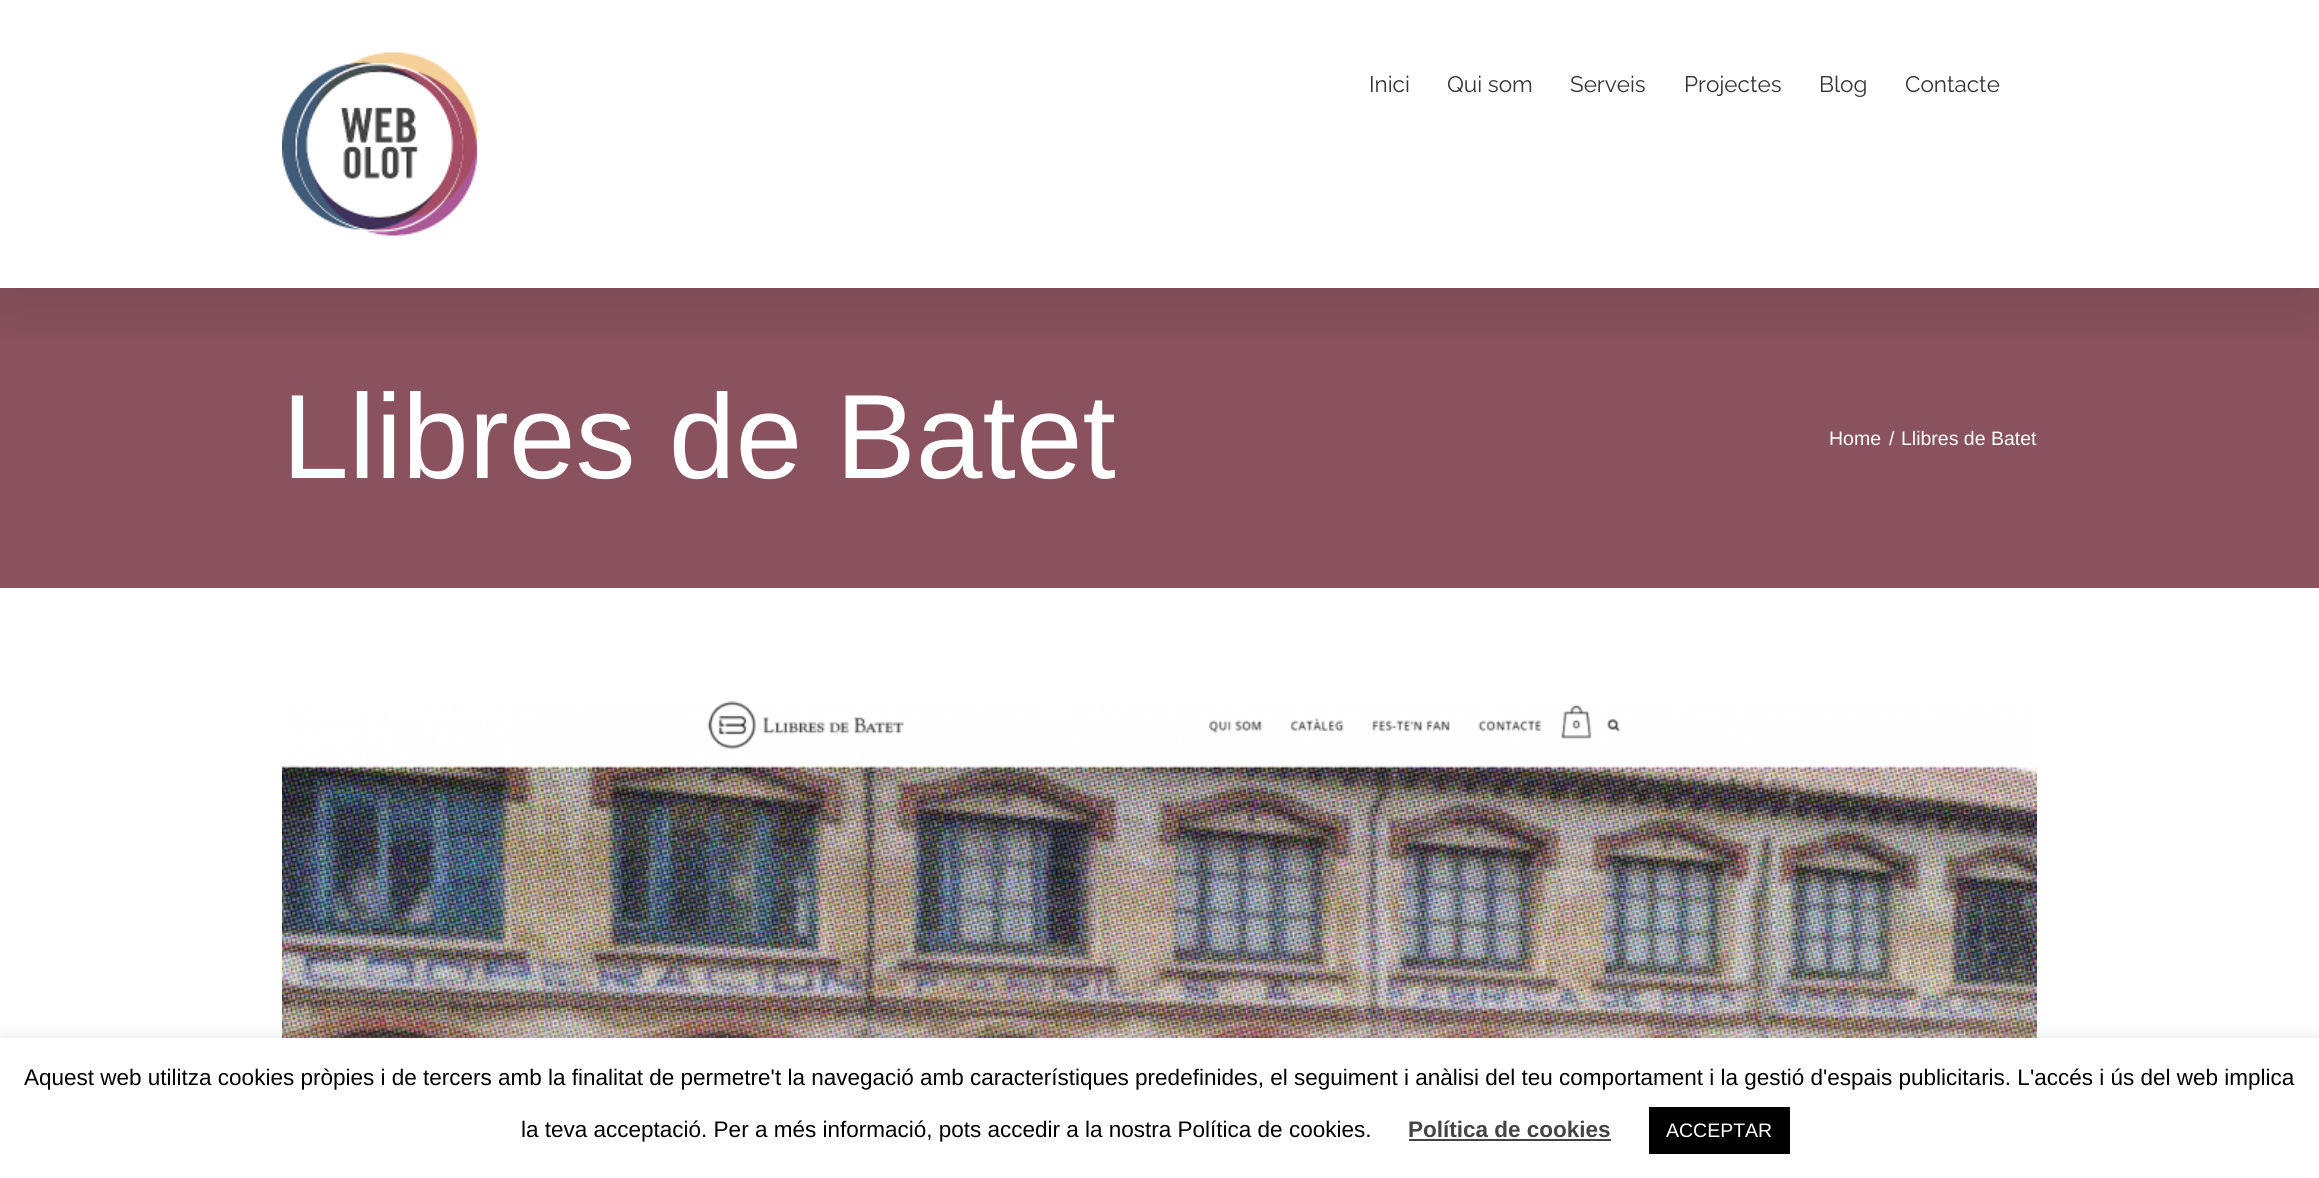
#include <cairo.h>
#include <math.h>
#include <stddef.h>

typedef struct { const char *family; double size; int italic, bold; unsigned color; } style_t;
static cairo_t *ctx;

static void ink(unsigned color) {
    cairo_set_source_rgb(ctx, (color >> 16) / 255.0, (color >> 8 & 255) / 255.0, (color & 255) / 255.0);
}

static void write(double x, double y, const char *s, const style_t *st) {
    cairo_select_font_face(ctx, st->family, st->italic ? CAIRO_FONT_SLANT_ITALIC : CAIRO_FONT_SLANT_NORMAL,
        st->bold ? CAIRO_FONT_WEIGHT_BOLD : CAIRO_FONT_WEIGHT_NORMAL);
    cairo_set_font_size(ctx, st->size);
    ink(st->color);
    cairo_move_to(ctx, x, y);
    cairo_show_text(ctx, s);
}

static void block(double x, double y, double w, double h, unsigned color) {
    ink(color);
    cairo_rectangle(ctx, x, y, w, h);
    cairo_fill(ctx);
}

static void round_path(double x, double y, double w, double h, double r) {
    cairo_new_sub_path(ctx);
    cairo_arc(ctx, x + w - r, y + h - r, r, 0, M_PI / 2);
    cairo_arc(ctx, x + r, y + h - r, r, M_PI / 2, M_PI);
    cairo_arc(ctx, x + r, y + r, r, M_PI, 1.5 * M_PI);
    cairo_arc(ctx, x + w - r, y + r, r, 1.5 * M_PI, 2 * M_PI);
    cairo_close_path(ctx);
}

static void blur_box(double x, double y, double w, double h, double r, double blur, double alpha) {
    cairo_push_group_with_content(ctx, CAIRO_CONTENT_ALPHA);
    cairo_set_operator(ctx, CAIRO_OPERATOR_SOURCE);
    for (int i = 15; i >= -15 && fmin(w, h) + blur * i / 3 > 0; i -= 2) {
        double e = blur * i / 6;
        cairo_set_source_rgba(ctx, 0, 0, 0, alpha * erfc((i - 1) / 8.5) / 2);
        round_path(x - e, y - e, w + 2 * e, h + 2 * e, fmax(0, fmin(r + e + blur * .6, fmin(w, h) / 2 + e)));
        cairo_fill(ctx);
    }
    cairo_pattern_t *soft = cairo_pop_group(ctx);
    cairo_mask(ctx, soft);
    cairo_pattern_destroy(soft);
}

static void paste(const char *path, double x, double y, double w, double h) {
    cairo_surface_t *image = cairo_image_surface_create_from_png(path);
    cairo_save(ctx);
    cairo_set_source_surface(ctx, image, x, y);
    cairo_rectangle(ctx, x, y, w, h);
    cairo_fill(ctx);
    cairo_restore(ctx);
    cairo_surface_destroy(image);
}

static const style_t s1 = {"Raleway Thin", 22.5, 0, 0, 0x333333};
static const style_t s2 = {"Liberation Sans", 120, 0, 0, 0xffffff};
static const style_t s3 = {"Liberation Sans", 19.5, 0, 0, 0xffffff};
static const style_t s4 = {"Liberation Sans", 22.5, 0, 0, 0x000000};
static const style_t s5 = {"Liberation Sans", 22.5, 0, 1, 0x444444};

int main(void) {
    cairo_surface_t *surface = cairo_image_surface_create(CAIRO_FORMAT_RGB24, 2319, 1178);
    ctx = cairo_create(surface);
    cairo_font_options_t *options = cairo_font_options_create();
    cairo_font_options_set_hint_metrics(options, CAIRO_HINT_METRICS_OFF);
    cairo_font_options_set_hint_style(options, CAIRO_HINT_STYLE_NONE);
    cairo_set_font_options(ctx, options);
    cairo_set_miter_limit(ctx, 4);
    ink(0xffffff);
    cairo_paint(ctx);
    block(0, 288, 2319, 300, 0x8a525e);
    cairo_save(ctx);
    cairo_rectangle(ctx, 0, 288, 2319, 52);
    cairo_clip(ctx);
    ink(0x000000);
    blur_box(3, 18, 2313, 282, 0, 37.5, 0.14);
    cairo_restore(ctx);
    paste("pic1.png", 282, 52, 195, 184);
    write(1369, 92, "Inici", &s1);
    write(1447, 92, "Qui som", &s1);
    write(1570, 92, "Serveis", &s1);
    write(1684, 92, "Projectes", &s1);
    write(1819, 92, "Blog", &s1);
    write(1905, 92, "Contacte", &s1);
    write(282, 478, "Llibres de Batet", &s2);
    write(1829, 445, "Home", &s3);
    write(1889, 445, "/", &s3);
    write(1901, 445, "Llibres de Batet", &s3);
    paste("pic2.png", 282, 701, 1755, 337);
    ink(0xacabab);
    blur_box(0, 1037, 2319, 141, 0, 7.5, 0.3);
    block(0, 1038, 2319, 140, 0xffffff);
    write(24, 1085, "Aquest web utilitza cookies pròpies i de tercers amb la finalitat de permetre't la navegació amb característiques predefinides, el seguiment i anàlisi del teu comportament i la gestió d'espais publicitaris. L'accés i ús del web implica", &s4);
    write(521, 1137, "la teva acceptació. Per a més informació, pots accedir a la nostra Política de cookies.", &s4);
    write(1408, 1137, "Política de cookies", &s5);
    block(1409, 1139, 202, 2, 0x444444);
    block(1649, 1107, 141, 47, 0x000000);
    write(1666, 1137, "ACCEPTAR", &s3);
    cairo_surface_write_to_png(surface, "screenshot.png");
    cairo_font_options_destroy(options);
    cairo_destroy(ctx);
    cairo_surface_destroy(surface);
    return 0;
}
